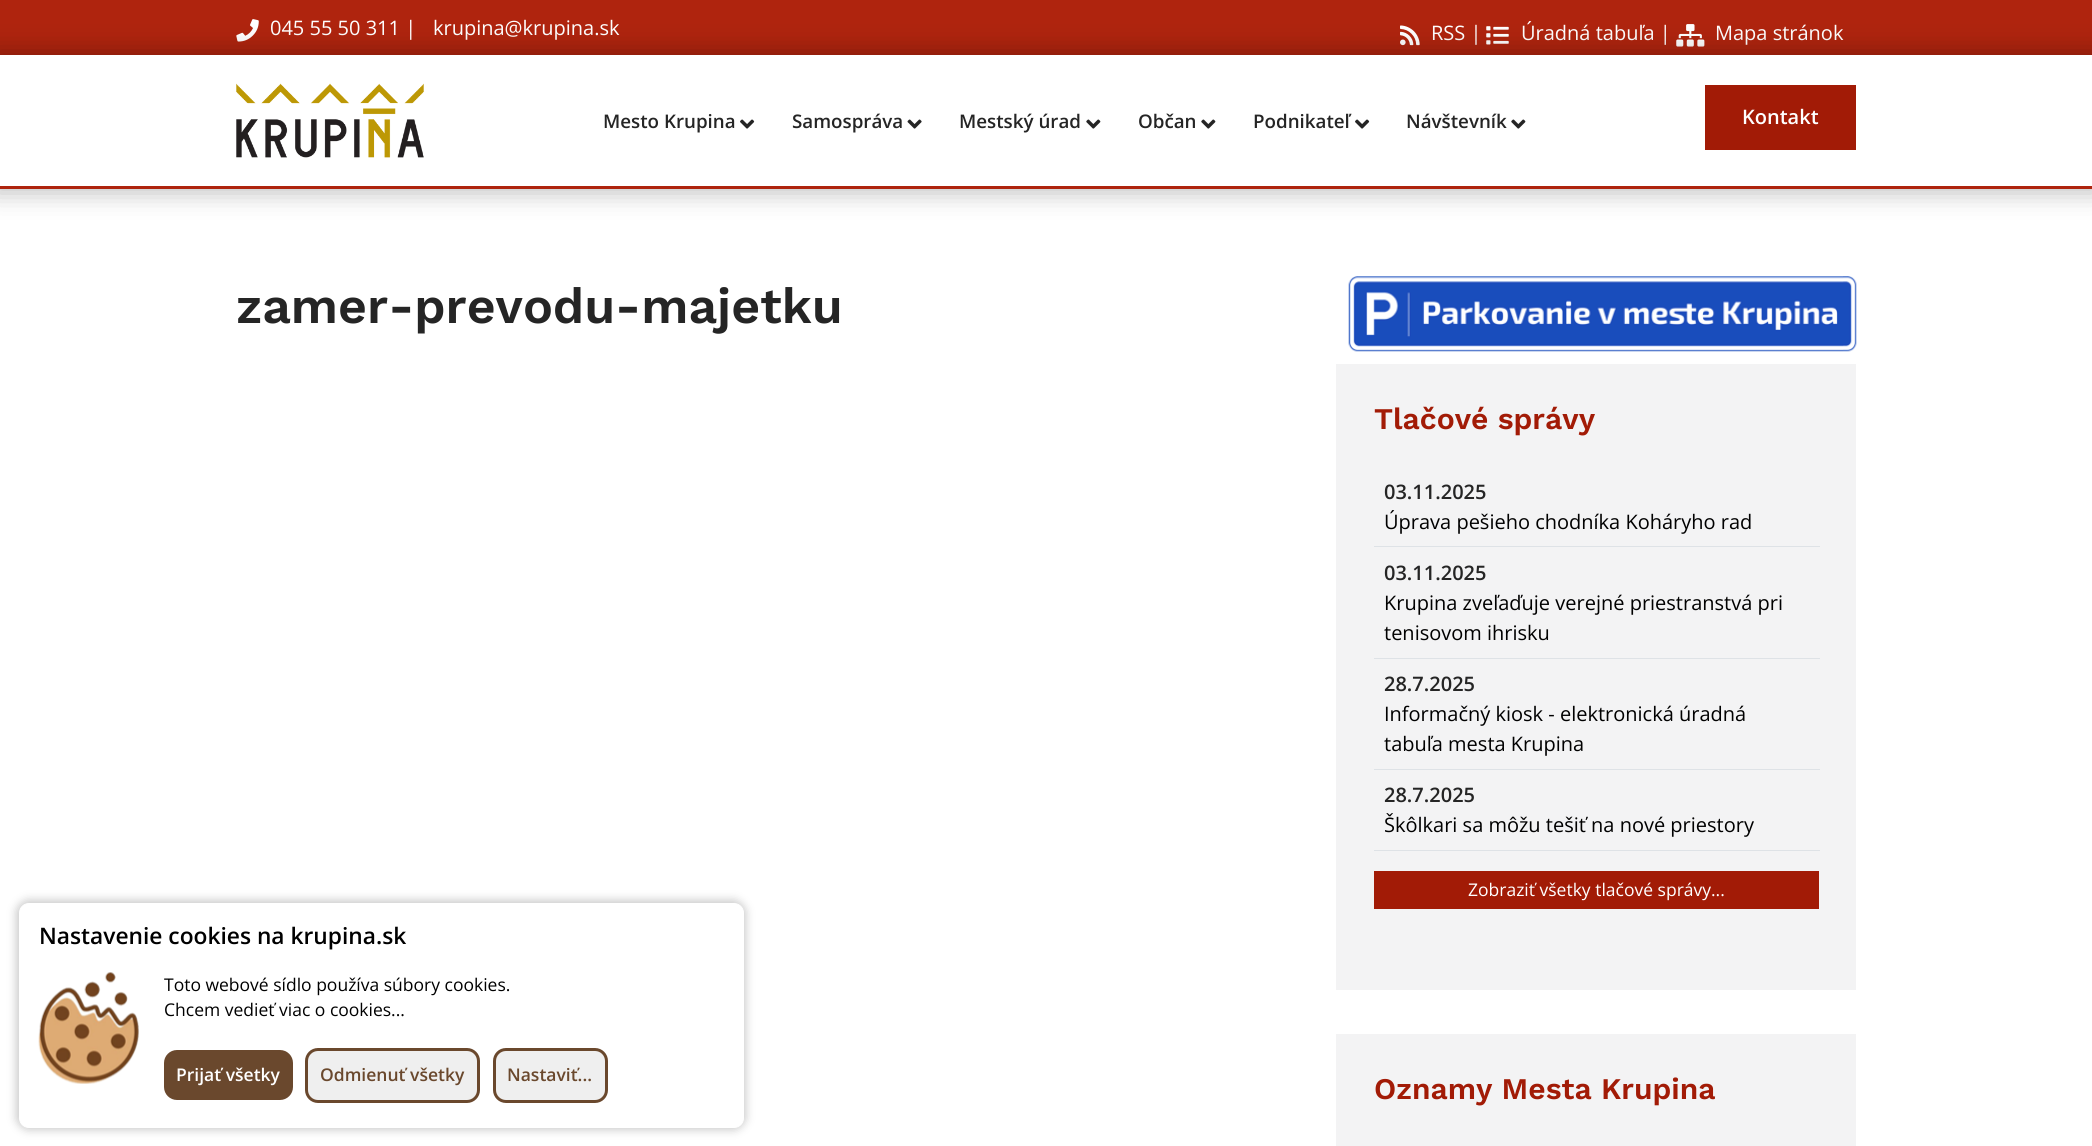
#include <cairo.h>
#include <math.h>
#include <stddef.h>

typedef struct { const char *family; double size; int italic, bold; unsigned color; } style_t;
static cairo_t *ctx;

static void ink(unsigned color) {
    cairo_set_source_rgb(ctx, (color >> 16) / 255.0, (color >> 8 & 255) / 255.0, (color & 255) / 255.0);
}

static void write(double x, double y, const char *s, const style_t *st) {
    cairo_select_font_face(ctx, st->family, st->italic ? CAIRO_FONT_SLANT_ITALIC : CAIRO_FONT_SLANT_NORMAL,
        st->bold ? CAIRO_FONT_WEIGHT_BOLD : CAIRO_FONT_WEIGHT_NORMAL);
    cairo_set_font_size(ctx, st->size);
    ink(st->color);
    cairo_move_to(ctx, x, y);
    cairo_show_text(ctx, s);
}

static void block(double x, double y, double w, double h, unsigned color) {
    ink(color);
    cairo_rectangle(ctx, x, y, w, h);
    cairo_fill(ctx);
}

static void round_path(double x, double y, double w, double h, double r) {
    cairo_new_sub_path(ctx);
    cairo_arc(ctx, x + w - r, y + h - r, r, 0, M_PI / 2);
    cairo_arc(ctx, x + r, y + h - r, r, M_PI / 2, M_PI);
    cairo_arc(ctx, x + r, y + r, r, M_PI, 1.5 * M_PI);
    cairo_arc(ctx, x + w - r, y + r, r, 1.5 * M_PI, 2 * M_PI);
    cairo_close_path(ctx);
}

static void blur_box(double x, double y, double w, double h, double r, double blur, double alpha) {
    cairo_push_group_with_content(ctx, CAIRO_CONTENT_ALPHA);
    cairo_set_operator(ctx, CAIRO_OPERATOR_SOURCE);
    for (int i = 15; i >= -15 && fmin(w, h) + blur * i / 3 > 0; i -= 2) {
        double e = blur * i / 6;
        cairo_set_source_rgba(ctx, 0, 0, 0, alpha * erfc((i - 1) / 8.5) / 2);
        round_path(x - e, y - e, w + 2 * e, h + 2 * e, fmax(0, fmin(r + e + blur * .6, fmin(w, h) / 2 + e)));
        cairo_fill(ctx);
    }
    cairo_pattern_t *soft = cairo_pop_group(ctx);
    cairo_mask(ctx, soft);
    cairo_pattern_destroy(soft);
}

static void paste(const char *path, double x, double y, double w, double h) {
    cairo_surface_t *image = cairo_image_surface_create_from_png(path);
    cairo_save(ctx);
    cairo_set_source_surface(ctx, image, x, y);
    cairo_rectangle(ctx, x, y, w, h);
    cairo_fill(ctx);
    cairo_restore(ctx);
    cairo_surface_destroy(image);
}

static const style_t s1 = {"Open Sans", 20, 0, 0, 0xffffff};
static const style_t s2 = {"Open Sans SemiBold", 18.75, 0, 0, 0x252525};
static const style_t s3 = {"Open Sans SemiBold", 20, 0, 0, 0xffffff};
static const style_t s4 = {"Work Sans SemiBold", 50, 0, 0, 0x252525};
static const style_t s5 = {"Work Sans SemiBold", 30, 0, 0, 0xa21b06};
static const style_t s6 = {"Open Sans SemiBold", 20, 0, 0, 0x252525};
static const style_t s7 = {"Open Sans", 20, 0, 0, 0x000000};
static const style_t s8 = {"Open Sans", 17.5, 0, 0, 0xffffff};
static const style_t s9 = {"Open Sans SemiBold", 22.75, 0, 0, 0x000000};
static const style_t s10 = {"Open Sans", 17.5, 0, 0, 0x000000};
static const style_t s11 = {"Open Sans SemiBold", 17.5, 0, 0, 0xffffff};
static const style_t s12 = {"Open Sans SemiBold", 17.5, 0, 0, 0x6a482d};

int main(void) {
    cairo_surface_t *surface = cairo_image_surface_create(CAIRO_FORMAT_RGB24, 2092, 1146);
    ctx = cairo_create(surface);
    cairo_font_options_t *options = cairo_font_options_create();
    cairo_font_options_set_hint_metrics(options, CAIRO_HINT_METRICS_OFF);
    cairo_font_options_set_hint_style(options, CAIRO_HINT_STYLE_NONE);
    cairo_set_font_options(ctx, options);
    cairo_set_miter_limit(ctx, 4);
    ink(0xffffff);
    cairo_paint(ctx);
    block(0, 0, 2092, 55, 0xaf240e);
    paste("pic1.png", 236, 19, 23, 23);
    write(270, 35, "045 55 50 311 |", &s1);
    write(433, 35, "krupina@krupina.sk", &s1);
    paste("pic2.png", 1400, 25, 20, 21);
    write(1431, 40, "RSS |", &s1);
    paste("pic3.png", 1486, 26, 23, 19);
    write(1521, 40, "Úradná tabuľa |", &s1);
    paste("pic4.png", 1676, 24, 29, 23);
    write(1715, 40, "Mapa stránok", &s1);
    ink(0x000000);
    blur_box(-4, 51, 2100, 142, 0, 12.5, 0.25);
    block(0, 55, 2092, 131, 0xffffff);
    block(0, 186, 2092, 3, 0xae240e);
    paste("pic5.png", 236, 83, 188, 75);
    write(603, 128, "Mesto Krupina", &s2);
    paste("pic6.png", 740, 119, 15, 10);
    write(792, 128, "Samospráva", &s2);
    paste("pic7.png", 907, 119, 15, 10);
    write(959, 128, "Mestský úrad", &s2);
    paste("pic8.png", 1086, 119, 15, 10);
    write(1138, 128, "Občan", &s2);
    paste("pic8.png", 1201, 119, 15, 10);
    write(1253, 128, "Podnikateľ", &s2);
    paste("pic6.png", 1355, 119, 15, 10);
    write(1406, 128, "Návštevník", &s2);
    paste("pic8.png", 1511, 119, 15, 10);
    block(1705, 85, 151, 65, 0xa21b06);
    write(1742, 124, "Kontakt", &s3);
    write(236, 323, "zamer-prevodu-majetku", &s4);
    paste("pic9.png", 1348, 276, 509, 76);
    block(1336, 364, 520, 626, 0xf3f3f4);
    write(1374, 429, "Tlačové správy", &s5);
    block(1374, 546, 446, 1, 0xdee2e6);
    write(1384, 499, "03.11.2025", &s6);
    write(1384, 529, "Úprava pešieho chodníka Koháryho rad", &s7);
    block(1374, 658, 446, 1, 0xdee2e6);
    write(1384, 580, "03.11.2025", &s6);
    write(1384, 610, "Krupina zveľaďuje verejné priestranstvá pri", &s7);
    write(1384, 640, "tenisovom ihrisku", &s7);
    block(1374, 769, 446, 1, 0xdee2e6);
    write(1384, 691, "28.7.2025", &s6);
    write(1384, 721, "Informačný kiosk - elektronická úradná", &s7);
    write(1384, 751, "tabuľa mesta Krupina", &s7);
    block(1374, 850, 446, 1, 0xdee2e6);
    write(1384, 802, "28.7.2025", &s6);
    write(1384, 832, "Škôlkari sa môžu tešiť na nové priestory", &s7);
    block(1374, 871, 445, 38, 0xa21b06);
    write(1468, 896, "Zobraziť všetky tlačové správy...", &s8);
    block(1336, 1034, 520, 112, 0xf3f3f4);
    write(1374, 1099, "Oznamy Mesta Krupina", &s5);
    ink(0xcbcbcb);
    blur_box(16, 900, 730, 230, 13, 4.5, 1);
    ink(0xffffff);
    round_path(19.5, 903.5, 724, 224, 9.5);
    cairo_fill_preserve(ctx);
    cairo_set_line_width(ctx, 1);
    cairo_stroke(ctx);
    write(39, 944, "Nastavenie cookies na krupina.sk", &s9);
    paste("pic10.png", 38, 972, 101, 112);
    write(164, 991, "Toto webové sídlo používa súbory cookies.", &s10);
    write(164, 1016, "Chcem vedieť viac o cookies...", &s10);
    ink(0x6a482d);
    round_path(164, 1050, 129, 50, 13);
    cairo_fill(ctx);
    write(176, 1081, "Prijať všetky", &s11);
    ink(0xefefef);
    round_path(306.5, 1049.5, 172, 52, 11.5);
    cairo_fill_preserve(ctx);
    ink(0x6a482d);
    cairo_set_line_width(ctx, 3);
    cairo_stroke(ctx);
    write(320, 1081, "Odmienuť všetky", &s12);
    ink(0xefefef);
    round_path(494.5, 1049.5, 112, 52, 11.5);
    cairo_fill_preserve(ctx);
    ink(0x6a482d);
    cairo_stroke(ctx);
    write(507, 1081, "Nastaviť...", &s12);
    cairo_surface_write_to_png(surface, "screenshot.png");
    cairo_font_options_destroy(options);
    cairo_destroy(ctx);
    cairo_surface_destroy(surface);
    return 0;
}
